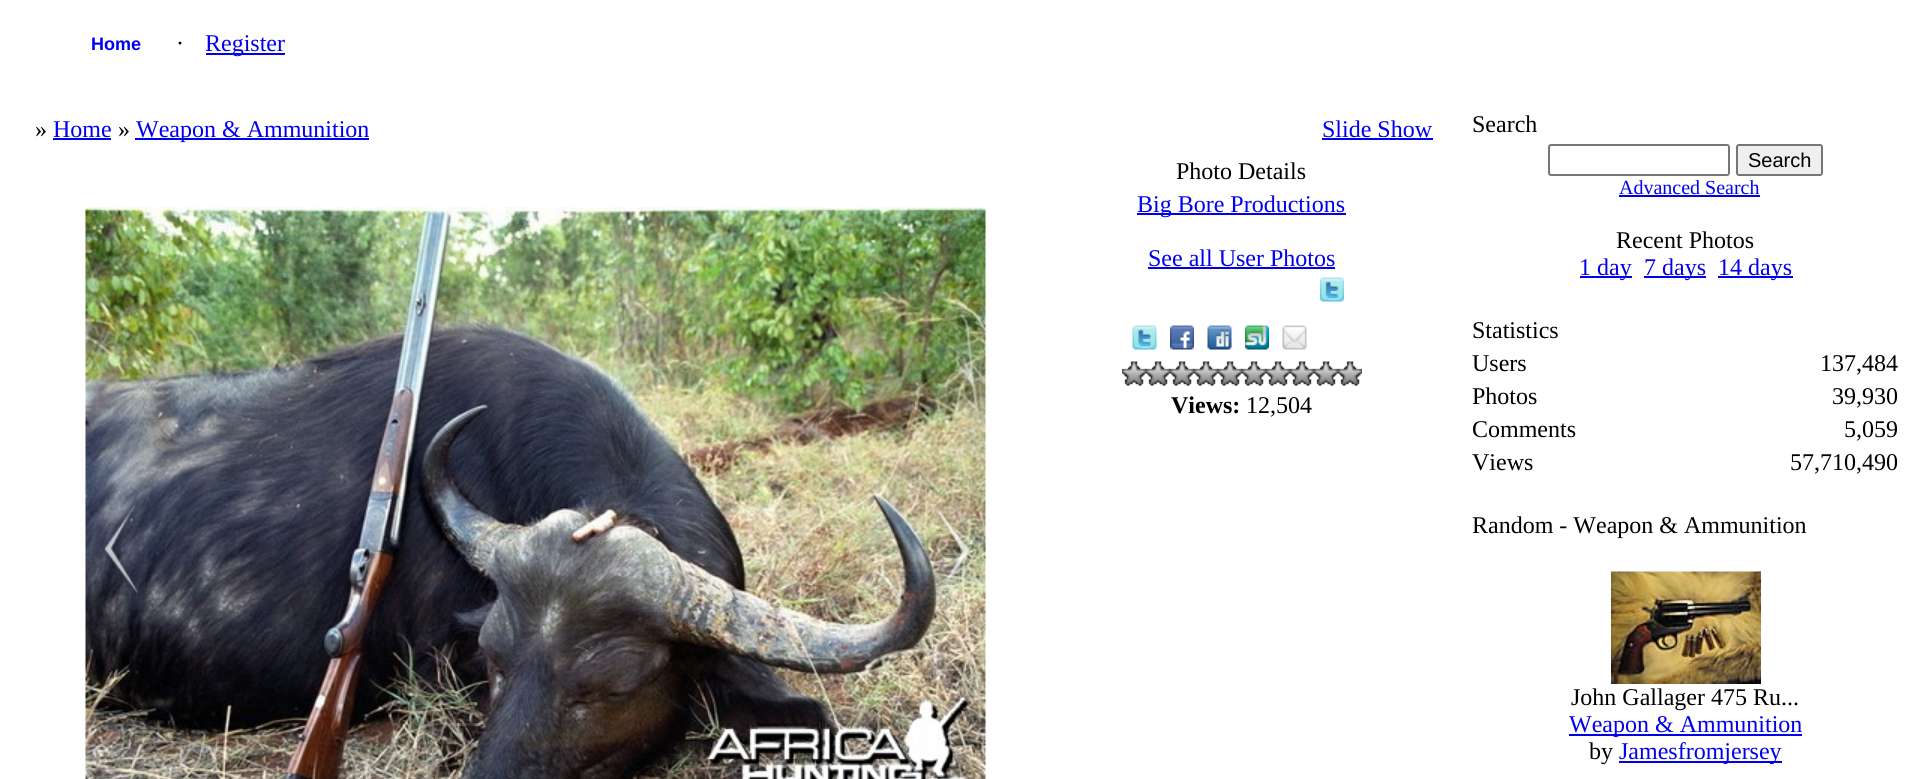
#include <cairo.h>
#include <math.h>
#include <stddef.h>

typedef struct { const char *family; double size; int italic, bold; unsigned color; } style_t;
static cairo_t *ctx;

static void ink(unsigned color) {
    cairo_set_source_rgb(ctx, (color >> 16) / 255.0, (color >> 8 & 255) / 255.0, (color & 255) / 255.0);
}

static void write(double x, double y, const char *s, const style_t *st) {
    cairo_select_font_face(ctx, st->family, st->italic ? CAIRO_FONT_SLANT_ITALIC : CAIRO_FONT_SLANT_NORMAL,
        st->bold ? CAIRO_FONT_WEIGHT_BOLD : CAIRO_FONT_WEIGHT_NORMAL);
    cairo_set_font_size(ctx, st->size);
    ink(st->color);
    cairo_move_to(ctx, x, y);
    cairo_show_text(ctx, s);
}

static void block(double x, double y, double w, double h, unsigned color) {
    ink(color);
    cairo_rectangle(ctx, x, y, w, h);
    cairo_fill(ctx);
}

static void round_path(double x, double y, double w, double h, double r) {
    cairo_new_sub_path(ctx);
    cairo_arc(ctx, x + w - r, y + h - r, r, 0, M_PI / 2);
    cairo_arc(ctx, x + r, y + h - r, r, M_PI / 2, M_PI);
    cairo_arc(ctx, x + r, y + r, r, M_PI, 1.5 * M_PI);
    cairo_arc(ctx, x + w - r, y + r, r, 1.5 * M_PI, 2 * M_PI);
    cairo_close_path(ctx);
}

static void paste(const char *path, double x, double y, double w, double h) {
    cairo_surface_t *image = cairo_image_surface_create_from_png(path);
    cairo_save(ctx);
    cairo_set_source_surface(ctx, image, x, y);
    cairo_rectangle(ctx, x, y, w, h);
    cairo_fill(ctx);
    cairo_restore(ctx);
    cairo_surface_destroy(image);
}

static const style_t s1 = {"Liberation Sans", 18, 0, 1, 0x0000ee};
static const style_t s2 = {"Liberation Serif", 24, 0, 0, 0x000000};
static const style_t s3 = {"Liberation Serif", 24, 0, 0, 0x0000ee};
static const style_t s4 = {"Liberation Serif", 24, 0, 1, 0x000000};
static const style_t s5 = {"Liberation Sans", 20, 0, 0, 0x000000};
static const style_t s6 = {"Liberation Serif", 20, 0, 0, 0x0000ee};

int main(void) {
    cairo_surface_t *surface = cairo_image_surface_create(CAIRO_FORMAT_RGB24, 1929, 779);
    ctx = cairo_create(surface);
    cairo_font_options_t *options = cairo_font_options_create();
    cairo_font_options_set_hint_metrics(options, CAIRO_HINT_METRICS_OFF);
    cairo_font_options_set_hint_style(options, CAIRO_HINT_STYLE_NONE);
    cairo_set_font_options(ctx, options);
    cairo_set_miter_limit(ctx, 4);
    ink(0xffffff);
    cairo_paint(ctx);
    write(91, 50, "Home", &s1);
    write(176, 51, "·", &s2);
    block(206, 53, 79, 2, 0x0000ee);
    write(205, 51, "Register", &s3);
    write(35, 137, "»", &s2);
    write(53, 137, "Home", &s3);
    block(53, 138, 58, 2, 0x0000ee);
    write(118, 137, "»", &s2);
    block(135, 138, 234, 2, 0x0000ee);
    write(136, 137, "Weapon & Ammunition", &s3);
    write(1322, 137, "Slide Show", &s3);
    block(1322, 138, 111, 2, 0x0000ee);
    paste("pic1.png", 85, 207, 901, 572);
    paste("pic2.png", 104, 505, 35, 88);
    paste("pic3.png", 932, 506, 38, 88);
    write(1176, 179, "Photo Details", &s2);
    block(1137, 213, 209, 2, 0x0000ee);
    write(1137, 212, "Big Bore Productions", &s3);
    write(1148, 266, "See all User Photos", &s3);
    block(1148, 267, 187, 2, 0x0000ee);
    paste("pic4.png", 1320, 277, 24, 25);
    paste("pic5.png", 1132, 325, 25, 25);
    paste("pic6.png", 1170, 325, 24, 25);
    paste("pic7.png", 1207, 325, 25, 25);
    paste("pic8.png", 1245, 325, 24, 25);
    paste("pic9.png", 1282, 325, 25, 25);
    paste("pic10.png", 1122, 361, 24, 25);
    paste("pic10.png", 1146, 361, 24, 25);
    paste("pic10.png", 1170, 361, 24, 25);
    paste("pic10.png", 1194, 361, 24, 25);
    paste("pic10.png", 1218, 361, 24, 25);
    paste("pic10.png", 1242, 361, 24, 25);
    paste("pic11.png", 1266, 361, 24, 25);
    paste("pic12.png", 1290, 361, 24, 25);
    paste("pic13.png", 1314, 361, 24, 25);
    paste("pic10.png", 1338, 361, 24, 25);
    write(1171, 413, "Views:", &s4);
    write(1246, 413, "12,504", &s2);
    write(1472, 132, "Search", &s2);
    round_path(1549, 145, 180, 30, 2);
    ink(0x767676);
    cairo_stroke(ctx);
    ink(0xefefef);
    round_path(1737, 145, 85, 30, 2);
    cairo_fill_preserve(ctx);
    ink(0x767676);
    cairo_stroke(ctx);
    write(1748, 167, "Search", &s5);
    write(1619, 194, "Advanced Search", &s6);
    block(1619, 195, 141, 2, 0x0000ee);
    write(1616, 248, "Recent Photos", &s2);
    block(1580, 276, 52, 2, 0x0000ee);
    write(1579, 275, "1 day", &s3);
    block(1644, 276, 62, 2, 0x0000ee);
    write(1644, 275, "7 days", &s3);
    block(1718, 276, 75, 2, 0x0000ee);
    write(1718, 275, "14 days", &s3);
    write(1472, 338, "Statistics", &s2);
    write(1472, 371, "Users", &s2);
    write(1820, 371, "137,484", &s2);
    write(1472, 404, "Photos", &s2);
    write(1832, 404, "39,930", &s2);
    write(1472, 437, "Comments", &s2);
    write(1844, 437, "5,059", &s2);
    write(1472, 470, "Views", &s2);
    write(1790, 470, "57,710,490", &s2);
    write(1472, 533, "Random - Weapon & Ammunition", &s2);
    paste("pic14.png", 1611, 571, 150, 113);
    write(1571, 705, "John Gallager 475 Ru...", &s2);
    block(1569, 734, 233, 2, 0x0000ee);
    write(1569, 732, "Weapon & Ammunition", &s3);
    write(1589, 759, "by", &s2);
    block(1619, 761, 163, 2, 0x0000ee);
    write(1619, 759, "Jamesfromjersey", &s3);
    cairo_surface_write_to_png(surface, "screenshot.png");
    cairo_font_options_destroy(options);
    cairo_destroy(ctx);
    cairo_surface_destroy(surface);
    return 0;
}
